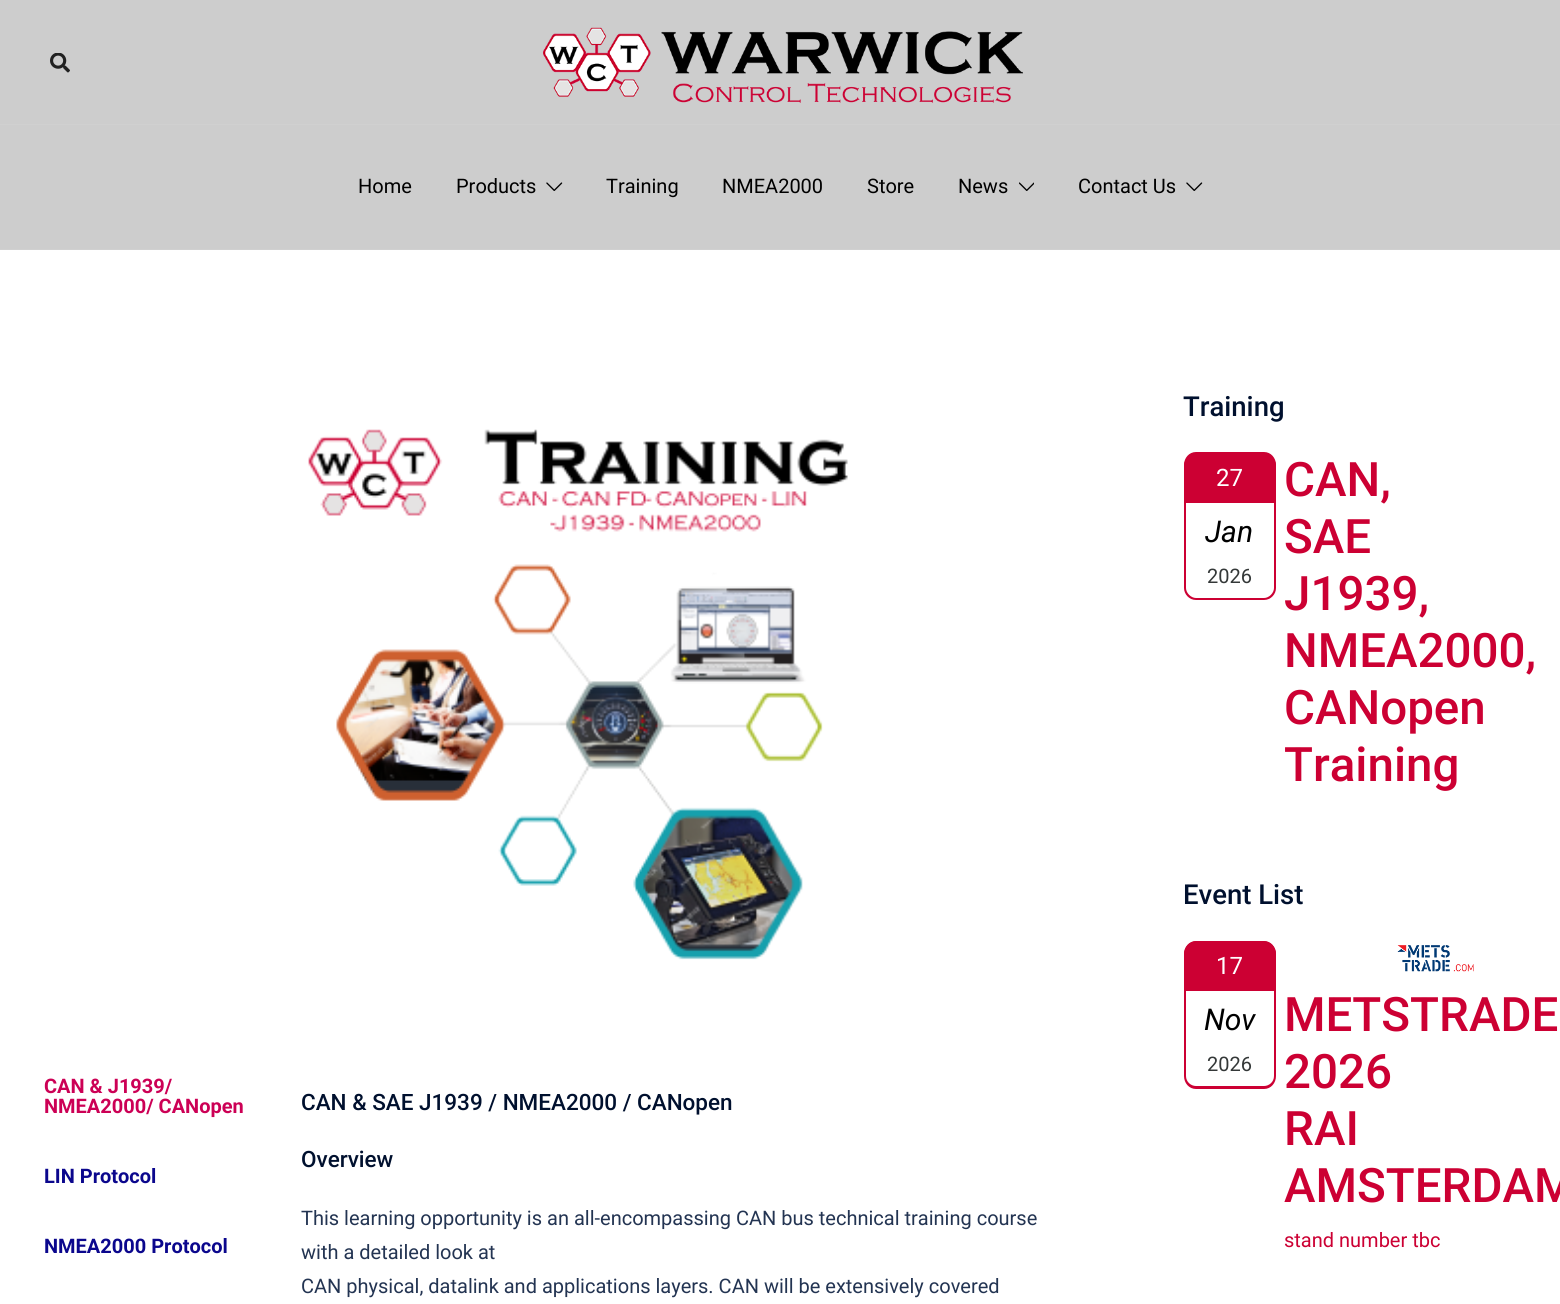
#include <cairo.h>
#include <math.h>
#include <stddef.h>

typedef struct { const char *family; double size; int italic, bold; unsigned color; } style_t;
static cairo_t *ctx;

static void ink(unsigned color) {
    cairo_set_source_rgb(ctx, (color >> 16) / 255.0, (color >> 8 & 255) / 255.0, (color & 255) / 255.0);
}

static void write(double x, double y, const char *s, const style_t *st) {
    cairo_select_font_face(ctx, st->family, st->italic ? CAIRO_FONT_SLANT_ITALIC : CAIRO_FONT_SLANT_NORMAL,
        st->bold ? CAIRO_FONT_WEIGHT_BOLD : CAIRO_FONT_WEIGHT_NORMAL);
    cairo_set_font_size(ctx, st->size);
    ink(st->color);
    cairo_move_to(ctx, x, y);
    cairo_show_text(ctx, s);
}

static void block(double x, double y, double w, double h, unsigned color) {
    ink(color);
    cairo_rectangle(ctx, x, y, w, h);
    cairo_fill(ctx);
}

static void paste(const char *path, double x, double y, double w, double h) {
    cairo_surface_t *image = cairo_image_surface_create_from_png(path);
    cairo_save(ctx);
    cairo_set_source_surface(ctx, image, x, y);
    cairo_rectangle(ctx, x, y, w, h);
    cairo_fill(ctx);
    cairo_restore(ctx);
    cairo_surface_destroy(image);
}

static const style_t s1 = {"Roboto", 20, 0, 0, 0x000000};
static const style_t s2 = {"Roboto", 20, 0, 1, 0xcc0055};
static const style_t s3 = {"Roboto", 20, 0, 1, 0x0b078d};
static const style_t s4 = {"Roboto Medium", 22.5, 0, 0, 0x00102e};
static const style_t s5 = {"Roboto", 20, 0, 0, 0x233452};
static const style_t s6 = {"Roboto Medium", 27.5, 0, 0, 0x00102e};
static const style_t s7 = {"Roboto", 24, 0, 0, 0xffffff};
static const style_t s8 = {"Roboto", 30, 1, 0, 0x000000};
static const style_t s9 = {"Roboto", 20, 0, 0, 0x343838};
static const style_t s10 = {"Roboto Medium", 47.5, 0, 0, 0xcc0033};
static const style_t s11 = {"Roboto", 20, 0, 0, 0xcc0033};

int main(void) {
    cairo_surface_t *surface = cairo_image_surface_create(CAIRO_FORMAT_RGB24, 1560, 1304);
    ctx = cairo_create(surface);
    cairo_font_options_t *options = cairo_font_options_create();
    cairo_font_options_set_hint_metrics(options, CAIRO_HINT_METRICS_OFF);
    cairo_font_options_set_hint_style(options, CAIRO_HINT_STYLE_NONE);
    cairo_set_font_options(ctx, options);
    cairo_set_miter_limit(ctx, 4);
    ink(0xffffff);
    cairo_paint(ctx);
    block(0, 0, 1560, 249, 0xcdcdcd);
    block(0, 124, 1560, 1, 0xd0d0d0);
    paste("pic1.png", 50, 53, 20, 20);
    paste("pic2.png", 543, 27, 480, 76);
    block(0, 249, 1560, 1, 0xd0d0d0);
    write(358, 193, "Home", &s1);
    write(456, 193, "Products", &s1);
    paste("pic3.png", 546, 182, 17, 9);
    write(606, 193, "Training", &s1);
    write(722, 193, "NMEA2000", &s1);
    write(867, 193, "Store", &s1);
    write(958, 193, "News", &s1);
    paste("pic4.png", 1019, 182, 15, 9);
    write(1078, 193, "Contact Us", &s1);
    paste("pic3.png", 1186, 182, 17, 9);
    paste("pic5.png", 308, 429, 540, 531);
    write(44, 1093, "CAN & J1939/", &s2);
    write(44, 1113, "NMEA2000/ CANopen", &s2);
    write(44, 1183, "LIN Protocol", &s3);
    write(44, 1253, "NMEA2000 Protocol", &s3);
    write(301, 1110, "CAN & SAE J1939 / NMEA2000 / CANopen", &s4);
    write(301, 1167, "Overview", &s4);
    write(301, 1225, "This learning opportunity is an all-encompassing CAN bus technical training course", &s5);
    write(301, 1259, "with a detailed look at", &s5);
    write(301, 1293, "CAN physical, datalink and applications layers. CAN will be extensively covered", &s5);
    write(1183, 416, "Training", &s6);
    ink(0xcc0033);
    cairo_new_path(ctx);
    cairo_move_to(ctx, 1197, 453);
    cairo_line_to(ctx, 1263, 453);
    cairo_curve_to(ctx, 1270, 453, 1276, 459, 1276, 466);
    cairo_line_to(ctx, 1276, 503);
    cairo_line_to(ctx, 1184, 503);
    cairo_line_to(ctx, 1184, 466);
    cairo_curve_to(ctx, 1184, 459, 1190, 453, 1197, 453);
    cairo_close_path(ctx);
    cairo_fill(ctx);
    cairo_set_fill_rule(ctx, CAIRO_FILL_RULE_EVEN_ODD);
    cairo_new_path(ctx);
    cairo_move_to(ctx, 1196, 452);
    cairo_line_to(ctx, 1264, 452);
    cairo_curve_to(ctx, 1271, 452, 1276, 458, 1276, 465);
    cairo_line_to(ctx, 1276, 502);
    cairo_line_to(ctx, 1184, 502);
    cairo_line_to(ctx, 1184, 465);
    cairo_curve_to(ctx, 1184, 458, 1189, 452, 1196, 452);
    cairo_close_path(ctx);
    cairo_move_to(ctx, 1196, 455);
    cairo_line_to(ctx, 1264, 455);
    cairo_curve_to(ctx, 1269, 455, 1274, 459, 1274, 465);
    cairo_line_to(ctx, 1274, 502);
    cairo_line_to(ctx, 1186, 502);
    cairo_line_to(ctx, 1186, 465);
    cairo_curve_to(ctx, 1186, 459, 1191, 455, 1196, 455);
    cairo_close_path(ctx);
    cairo_fill(ctx);
    write(1216, 486, "27", &s7);
    ink(0xcc0033);
    cairo_new_path(ctx);
    cairo_move_to(ctx, 1184, 502);
    cairo_line_to(ctx, 1276, 502);
    cairo_line_to(ctx, 1276, 588);
    cairo_curve_to(ctx, 1276, 594, 1271, 600, 1264, 600);
    cairo_line_to(ctx, 1196, 600);
    cairo_curve_to(ctx, 1189, 600, 1184, 594, 1184, 588);
    cairo_close_path(ctx);
    cairo_move_to(ctx, 1186, 502);
    cairo_line_to(ctx, 1274, 502);
    cairo_line_to(ctx, 1274, 588);
    cairo_curve_to(ctx, 1274, 593, 1269, 598, 1264, 598);
    cairo_line_to(ctx, 1196, 598);
    cairo_curve_to(ctx, 1191, 598, 1186, 593, 1186, 588);
    cairo_close_path(ctx);
    cairo_fill(ctx);
    write(1205, 542, "Jan", &s8);
    write(1207, 583, "2026", &s9);
    write(1284, 496, "CAN,", &s10);
    write(1284, 553, "SAE", &s10);
    write(1284, 610, "J1939,", &s10);
    write(1284, 667, "NMEA2000,", &s10);
    write(1284, 724, "CANopen", &s10);
    write(1284, 781, "Training", &s10);
    write(1183, 904, "Event List", &s6);
    ink(0xcc0033);
    cairo_new_path(ctx);
    cairo_move_to(ctx, 1197, 941);
    cairo_line_to(ctx, 1263, 941);
    cairo_curve_to(ctx, 1270, 941, 1276, 947, 1276, 954);
    cairo_line_to(ctx, 1276, 991);
    cairo_line_to(ctx, 1184, 991);
    cairo_line_to(ctx, 1184, 954);
    cairo_curve_to(ctx, 1184, 947, 1190, 941, 1197, 941);
    cairo_close_path(ctx);
    cairo_fill(ctx);
    cairo_new_path(ctx);
    cairo_move_to(ctx, 1196, 941);
    cairo_line_to(ctx, 1264, 941);
    cairo_curve_to(ctx, 1271, 941, 1276, 947, 1276, 954);
    cairo_line_to(ctx, 1276, 991);
    cairo_line_to(ctx, 1184, 991);
    cairo_line_to(ctx, 1184, 954);
    cairo_curve_to(ctx, 1184, 947, 1189, 941, 1196, 941);
    cairo_close_path(ctx);
    cairo_move_to(ctx, 1196, 944);
    cairo_line_to(ctx, 1264, 944);
    cairo_curve_to(ctx, 1269, 944, 1274, 948, 1274, 954);
    cairo_line_to(ctx, 1274, 991);
    cairo_line_to(ctx, 1186, 991);
    cairo_line_to(ctx, 1186, 954);
    cairo_curve_to(ctx, 1186, 948, 1191, 944, 1196, 944);
    cairo_close_path(ctx);
    cairo_fill(ctx);
    write(1216, 974, "17", &s7);
    ink(0xcc0033);
    cairo_new_path(ctx);
    cairo_move_to(ctx, 1184, 991);
    cairo_line_to(ctx, 1276, 991);
    cairo_line_to(ctx, 1276, 1076);
    cairo_curve_to(ctx, 1276, 1083, 1271, 1089, 1264, 1089);
    cairo_line_to(ctx, 1196, 1089);
    cairo_curve_to(ctx, 1189, 1089, 1184, 1083, 1184, 1076);
    cairo_close_path(ctx);
    cairo_move_to(ctx, 1186, 991);
    cairo_line_to(ctx, 1274, 991);
    cairo_line_to(ctx, 1274, 1076);
    cairo_curve_to(ctx, 1274, 1082, 1269, 1086, 1264, 1086);
    cairo_line_to(ctx, 1196, 1086);
    cairo_curve_to(ctx, 1191, 1086, 1186, 1082, 1186, 1076);
    cairo_close_path(ctx);
    cairo_fill(ctx);
    write(1204, 1030, "Nov", &s8);
    write(1207, 1071, "2026", &s9);
    paste("pic6.png", 1397, 945, 77, 27);
    write(1284, 1031, "METSTRADE", &s10);
    write(1284, 1088, "2026", &s10);
    write(1284, 1145, "RAI", &s10);
    write(1284, 1202, "AMSTERDAM", &s10);
    write(1284, 1247, "stand number tbc", &s11);
    cairo_surface_write_to_png(surface, "screenshot.png");
    cairo_font_options_destroy(options);
    cairo_destroy(ctx);
    cairo_surface_destroy(surface);
    return 0;
}
